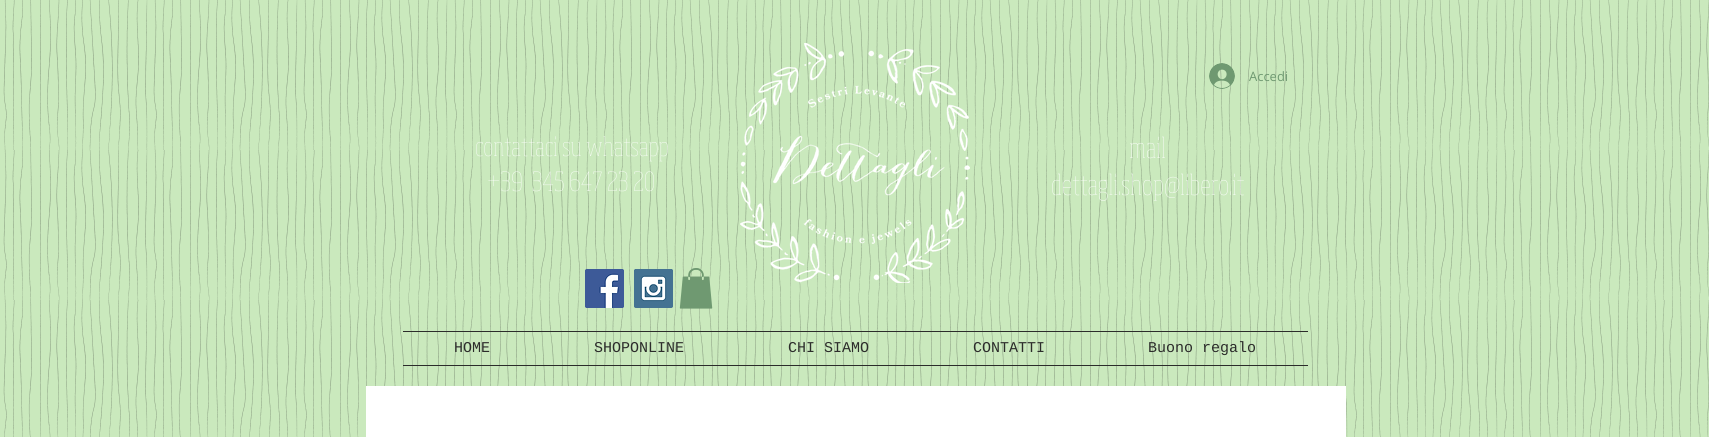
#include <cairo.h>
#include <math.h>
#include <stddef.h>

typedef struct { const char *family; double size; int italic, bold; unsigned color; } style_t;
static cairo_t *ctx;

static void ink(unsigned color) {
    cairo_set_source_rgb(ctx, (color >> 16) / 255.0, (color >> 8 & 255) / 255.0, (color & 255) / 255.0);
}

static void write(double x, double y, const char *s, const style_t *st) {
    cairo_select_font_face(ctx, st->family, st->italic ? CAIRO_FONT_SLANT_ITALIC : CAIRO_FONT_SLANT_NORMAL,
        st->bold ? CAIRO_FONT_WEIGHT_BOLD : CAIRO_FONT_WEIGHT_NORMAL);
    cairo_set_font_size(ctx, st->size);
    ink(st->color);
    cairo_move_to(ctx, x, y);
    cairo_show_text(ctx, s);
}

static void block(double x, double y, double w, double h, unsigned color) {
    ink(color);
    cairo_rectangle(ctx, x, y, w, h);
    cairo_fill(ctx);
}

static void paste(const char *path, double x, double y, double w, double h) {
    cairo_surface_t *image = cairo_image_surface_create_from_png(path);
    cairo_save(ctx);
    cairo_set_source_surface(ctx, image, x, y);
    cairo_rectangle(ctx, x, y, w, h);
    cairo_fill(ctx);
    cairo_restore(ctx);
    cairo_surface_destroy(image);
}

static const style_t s1 = {"Open Sans", 13, 0, 0, 0x6f9971};
static const style_t s2 = {"Liberation Mono", 15, 0, 0, 0x2c2c2b};

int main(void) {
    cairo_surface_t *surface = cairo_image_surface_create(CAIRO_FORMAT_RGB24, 1709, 437);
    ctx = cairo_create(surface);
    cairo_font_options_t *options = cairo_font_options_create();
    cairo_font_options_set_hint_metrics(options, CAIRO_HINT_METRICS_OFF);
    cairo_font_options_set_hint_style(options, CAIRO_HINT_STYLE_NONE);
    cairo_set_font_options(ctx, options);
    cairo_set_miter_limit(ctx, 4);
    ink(0xcae9bd);
    cairo_paint(ctx);
    paste("pic1.png", 3, 0, 1706, 437);
    paste("pic2.png", 740, 43, 230, 240);
    paste("pic3.png", 1209, 63, 26, 26);
    write(1249, 81, "Accedi", &s1);
    paste("pic4.png", 476, 136, 192, 26);
    paste("pic5.png", 488, 171, 166, 21);
    paste("pic6.png", 1130, 136, 35, 23);
    paste("pic7.png", 1052, 173, 192, 28);
    paste("pic8.png", 585, 269, 39, 39);
    paste("pic9.png", 634, 269, 39, 39);
    paste("pic10.png", 679, 268, 34, 41);
    block(403, 331, 905, 1, 0x2c2c2b);
    block(403, 365, 905, 1, 0x2c2c2b);
    write(454, 352, "HOME", &s2);
    write(594, 352, "SHOPONLINE", &s2);
    write(788, 352, "CHI SIAMO", &s2);
    write(973, 352, "CONTATTI", &s2);
    write(1148, 352, "Buono regalo", &s2);
    block(366, 386, 980, 51, 0xffffff);
    cairo_surface_write_to_png(surface, "screenshot.png");
    cairo_font_options_destroy(options);
    cairo_destroy(ctx);
    cairo_surface_destroy(surface);
    return 0;
}
